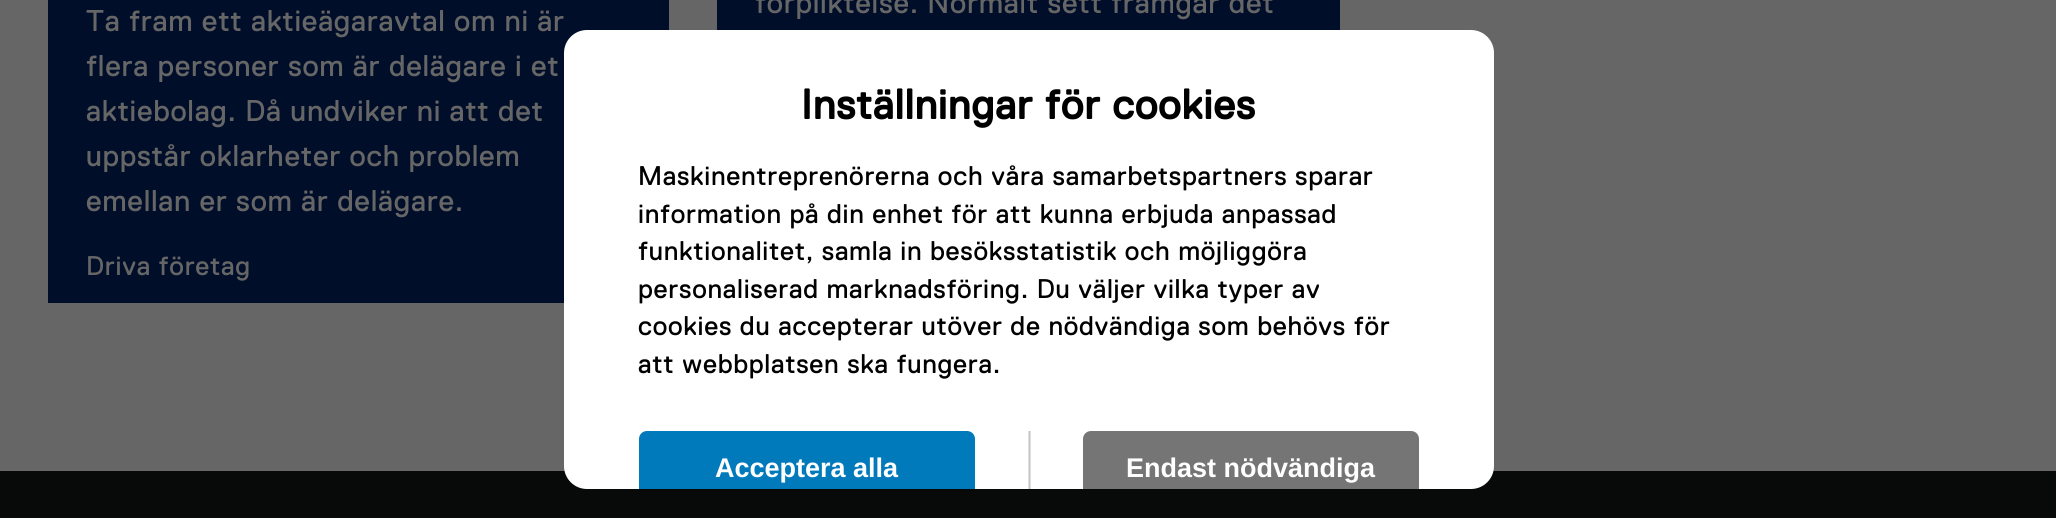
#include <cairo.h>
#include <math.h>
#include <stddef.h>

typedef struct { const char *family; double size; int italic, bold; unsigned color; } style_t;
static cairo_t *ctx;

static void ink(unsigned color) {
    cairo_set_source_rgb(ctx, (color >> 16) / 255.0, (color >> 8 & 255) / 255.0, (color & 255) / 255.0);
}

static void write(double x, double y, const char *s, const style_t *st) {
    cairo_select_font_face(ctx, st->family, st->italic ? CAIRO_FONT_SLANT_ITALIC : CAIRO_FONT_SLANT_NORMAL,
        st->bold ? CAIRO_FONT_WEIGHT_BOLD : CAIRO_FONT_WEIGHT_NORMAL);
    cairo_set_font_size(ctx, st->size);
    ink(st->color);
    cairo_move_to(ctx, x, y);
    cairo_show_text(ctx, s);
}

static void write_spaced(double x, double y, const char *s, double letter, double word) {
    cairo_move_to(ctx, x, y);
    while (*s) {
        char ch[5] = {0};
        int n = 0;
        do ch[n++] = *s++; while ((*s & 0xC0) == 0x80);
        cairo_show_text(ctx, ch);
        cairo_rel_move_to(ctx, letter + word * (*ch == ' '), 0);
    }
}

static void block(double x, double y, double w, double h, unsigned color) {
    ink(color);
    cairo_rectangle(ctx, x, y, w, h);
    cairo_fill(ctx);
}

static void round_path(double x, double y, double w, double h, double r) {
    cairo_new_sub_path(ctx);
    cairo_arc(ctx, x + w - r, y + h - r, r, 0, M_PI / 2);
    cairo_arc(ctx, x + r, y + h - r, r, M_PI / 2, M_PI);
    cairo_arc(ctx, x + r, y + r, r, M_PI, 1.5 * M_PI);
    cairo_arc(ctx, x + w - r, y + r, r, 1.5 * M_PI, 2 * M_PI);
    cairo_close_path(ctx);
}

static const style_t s1 = {"Liberation Sans", 27, 0, 1, 0xffffff};

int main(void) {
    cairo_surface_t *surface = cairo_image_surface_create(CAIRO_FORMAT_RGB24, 2056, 518);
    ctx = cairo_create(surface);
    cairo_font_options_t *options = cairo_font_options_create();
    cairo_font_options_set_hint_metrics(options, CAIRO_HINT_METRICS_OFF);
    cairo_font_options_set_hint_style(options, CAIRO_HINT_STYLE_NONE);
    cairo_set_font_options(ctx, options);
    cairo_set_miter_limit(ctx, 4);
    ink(0x666666);
    cairo_paint(ctx);
    block(48, 0, 621, 303, 0x000e2a);
    cairo_select_font_face(ctx, "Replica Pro", CAIRO_FONT_SLANT_NORMAL, CAIRO_FONT_WEIGHT_NORMAL);
    cairo_set_font_size(ctx, 30);
    ink(0x666666);
    write_spaced(86, 31, "Ta fram ett aktieägaravtal om ni är", 0.72, 0);
    write_spaced(86, 76, "flera personer som är delägare i et", 0.72, 0);
    write_spaced(86, 121, "aktiebolag. Då undviker ni att det", 0.72, 0);
    write_spaced(86, 166, "uppstår oklarheter och problem", 0.72, 0);
    write_spaced(86, 211, "emellan er som är delägare.", 0.72, 0);
    cairo_set_font_size(ctx, 27);
    write_spaced(86, 275, "Driva företag", 0.72, 0);
    block(717, 0, 623, 30, 0x000e2a);
    cairo_set_font_size(ctx, 30);
    ink(0x666666);
    write_spaced(755, 13, "förpliktelse. Normalt sett framgår det", 0.72, 0);
    block(0, 471, 2056, 47, 0x080909);
    ink(0xffffff);
    round_path(564, 30, 930, 459, 23);
    cairo_fill(ctx);
    block(1030, 431, 1, 58, 0xe0e0e0);
    cairo_select_font_face(ctx, "Replica Pro", CAIRO_FONT_SLANT_NORMAL, CAIRO_FONT_WEIGHT_BOLD);
    cairo_set_font_size(ctx, 42);
    ink(0x000000);
    write_spaced(801, 119, "Inställningar för cookies", 0.72, 0);
    cairo_select_font_face(ctx, "Replica Pro", CAIRO_FONT_SLANT_NORMAL, CAIRO_FONT_WEIGHT_NORMAL);
    cairo_set_font_size(ctx, 27);
    write_spaced(638, 185, "Maskinentreprenörerna och våra samarbetspartners sparar", 0.72, 0);
    write_spaced(638, 223, "information på din enhet för att kunna erbjuda anpassad", 0.72, 0);
    write_spaced(638, 260, "funktionalitet, samla in besöksstatistik och möjliggöra", 0.72, 0);
    write_spaced(638, 298, "personaliserad marknadsföring. Du väljer vilka typer av", 0.72, 0);
    write_spaced(638, 335, "cookies du accepterar utöver de nödvändiga som behövs för", 0.72, 0);
    write_spaced(638, 373, "att webbplatsen ska fungera.", 0.72, 0);
    block(1028, 431, 1, 58, 0xe0e0e0);
    block(1029, 431, 1, 58, 0xc5c5c5);
    ink(0x017abc);
    cairo_new_path(ctx);
    cairo_move_to(ctx, 647, 431);
    cairo_line_to(ctx, 967, 431);
    cairo_curve_to(ctx, 971.5, 431, 975, 434.5, 975, 439);
    cairo_line_to(ctx, 975, 489);
    cairo_line_to(ctx, 639, 489);
    cairo_line_to(ctx, 639, 439);
    cairo_curve_to(ctx, 639, 434.5, 642.5, 431, 647, 431);
    cairo_close_path(ctx);
    cairo_fill(ctx);
    write(715, 477, "Acceptera alla", &s1);
    ink(0x757575);
    cairo_new_path(ctx);
    cairo_move_to(ctx, 1091, 431);
    cairo_line_to(ctx, 1411, 431);
    cairo_curve_to(ctx, 1415.5, 431, 1419, 434.5, 1419, 439);
    cairo_line_to(ctx, 1419, 489);
    cairo_line_to(ctx, 1083, 489);
    cairo_line_to(ctx, 1083, 439);
    cairo_curve_to(ctx, 1083, 434.5, 1086.5, 431, 1091, 431);
    cairo_close_path(ctx);
    cairo_fill(ctx);
    write(1126, 477, "Endast nödvändiga", &s1);
    cairo_surface_write_to_png(surface, "screenshot.png");
    cairo_font_options_destroy(options);
    cairo_destroy(ctx);
    cairo_surface_destroy(surface);
    return 0;
}
